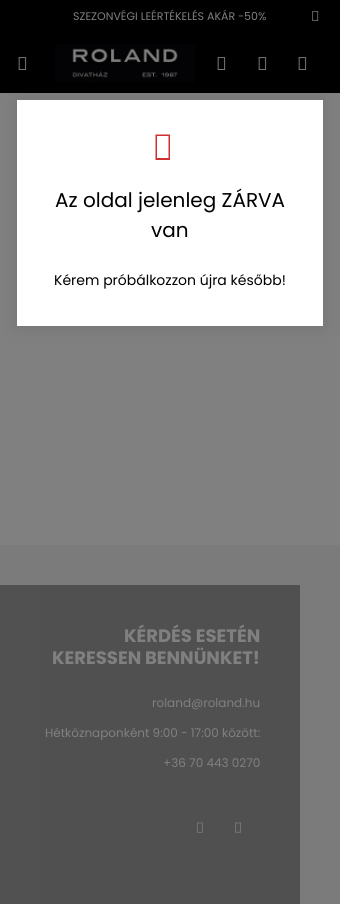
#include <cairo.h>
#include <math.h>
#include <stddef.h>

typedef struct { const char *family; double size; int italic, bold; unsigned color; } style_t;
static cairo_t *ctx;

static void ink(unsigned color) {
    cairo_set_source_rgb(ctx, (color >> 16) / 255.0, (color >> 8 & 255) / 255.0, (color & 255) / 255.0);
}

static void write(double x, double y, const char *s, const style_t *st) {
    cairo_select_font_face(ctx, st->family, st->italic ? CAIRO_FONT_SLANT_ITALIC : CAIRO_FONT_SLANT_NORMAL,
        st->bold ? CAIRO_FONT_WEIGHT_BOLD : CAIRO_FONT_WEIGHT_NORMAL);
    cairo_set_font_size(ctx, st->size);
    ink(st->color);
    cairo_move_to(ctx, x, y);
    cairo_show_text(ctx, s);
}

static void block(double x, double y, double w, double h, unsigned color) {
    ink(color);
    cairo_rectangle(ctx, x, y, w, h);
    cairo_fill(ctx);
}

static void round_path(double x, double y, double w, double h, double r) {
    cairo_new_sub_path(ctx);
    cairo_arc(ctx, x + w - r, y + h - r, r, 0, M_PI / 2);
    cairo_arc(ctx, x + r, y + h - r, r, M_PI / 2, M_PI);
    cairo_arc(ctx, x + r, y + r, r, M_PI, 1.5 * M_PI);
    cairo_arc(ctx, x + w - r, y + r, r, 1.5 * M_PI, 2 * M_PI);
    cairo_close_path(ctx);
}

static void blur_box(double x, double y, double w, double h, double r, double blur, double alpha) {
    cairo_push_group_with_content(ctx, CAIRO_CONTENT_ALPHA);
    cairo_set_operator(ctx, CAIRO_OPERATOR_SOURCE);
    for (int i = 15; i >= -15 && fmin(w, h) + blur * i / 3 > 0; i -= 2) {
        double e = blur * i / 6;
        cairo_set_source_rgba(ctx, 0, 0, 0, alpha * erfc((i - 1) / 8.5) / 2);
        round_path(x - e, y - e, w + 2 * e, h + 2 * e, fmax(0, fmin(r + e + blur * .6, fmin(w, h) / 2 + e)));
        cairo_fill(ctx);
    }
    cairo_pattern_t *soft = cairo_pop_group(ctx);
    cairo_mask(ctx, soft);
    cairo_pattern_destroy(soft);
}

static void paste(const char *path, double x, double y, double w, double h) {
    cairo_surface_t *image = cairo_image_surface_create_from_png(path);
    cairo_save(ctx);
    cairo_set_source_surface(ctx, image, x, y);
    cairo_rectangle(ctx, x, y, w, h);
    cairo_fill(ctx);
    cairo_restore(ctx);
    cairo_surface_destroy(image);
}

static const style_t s1 = {"Poppins", 11, 0, 0, 0x808080};
static const style_t s2 = {"Poppins", 18, 0, 1, 0x808080};
static const style_t s3 = {"Poppins", 12, 0, 0, 0x808080};
static const style_t s4 = {"Poppins", 20, 0, 0, 0x000000};
static const style_t s5 = {"Poppins", 14, 0, 0, 0x000000};

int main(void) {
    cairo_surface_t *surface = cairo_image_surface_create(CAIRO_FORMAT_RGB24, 340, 904);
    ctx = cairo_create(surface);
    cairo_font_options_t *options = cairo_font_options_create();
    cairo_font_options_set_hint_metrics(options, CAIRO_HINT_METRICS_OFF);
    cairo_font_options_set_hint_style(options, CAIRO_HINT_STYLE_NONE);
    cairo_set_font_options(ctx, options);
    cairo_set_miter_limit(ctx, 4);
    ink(0x808080);
    cairo_paint(ctx);
    block(0, 0, 340, 93, 0x000000);
    paste("pic1.png", 18, 57, 9, 13);
    paste("pic2.png", 55, 44, 140, 38);
    paste("pic1.png", 217, 57, 9, 13);
    paste("pic1.png", 258, 57, 9, 13);
    paste("pic1.png", 298, 57, 9, 13);
    write(73, 20, "SZEZONVÉGI LEÉRTÉKELÉS AKÁR -50%", &s1);
    paste("pic3.png", 312, 11, 7, 10);
    block(0, 545, 340, 359, 0x7b7b7b);
    block(40, 585, 260, 319, 0x505050);
    block(0, 585, 40, 319, 0x515151);
    write(124, 642, "KÉRDÉS ESETÉN", &s2);
    write(52, 664, "KERESSEN BENNÜNKET!", &s2);
    write(152, 707, "roland@roland.hu", &s3);
    write(45, 737, "Hétköznaponként 9:00 - 17:00 között:", &s3);
    write(163, 767, "+36 70 443 0270", &s3);
    paste("pic4.png", 196, 822, 7, 11);
    paste("pic5.png", 235, 822, 6, 11);
    ink(0x000000);
    blur_box(17, 100, 306, 226, 0, 10, 0.1);
    block(17, 100, 306, 226, 0xffffff);
    ink(0xcf2f2f);
    cairo_new_path(ctx);
    cairo_move_to(ctx, 155.5, 160);
    cairo_line_to(ctx, 155.5, 134.5);
    cairo_line_to(ctx, 170, 134.5);
    cairo_line_to(ctx, 170, 160);
    cairo_close_path(ctx);
    cairo_move_to(ctx, 157, 158);
    cairo_line_to(ctx, 168.5, 158);
    cairo_line_to(ctx, 168.5, 136);
    cairo_line_to(ctx, 157, 136);
    cairo_close_path(ctx);
    cairo_fill(ctx);
    write(55, 207, "Az oldal jelenleg ZÁRVA", &s4);
    write(151, 237, "van", &s4);
    write(54, 285, "Kérem próbálkozzon újra később!", &s5);
    cairo_surface_write_to_png(surface, "screenshot.png");
    cairo_font_options_destroy(options);
    cairo_destroy(ctx);
    cairo_surface_destroy(surface);
    return 0;
}
